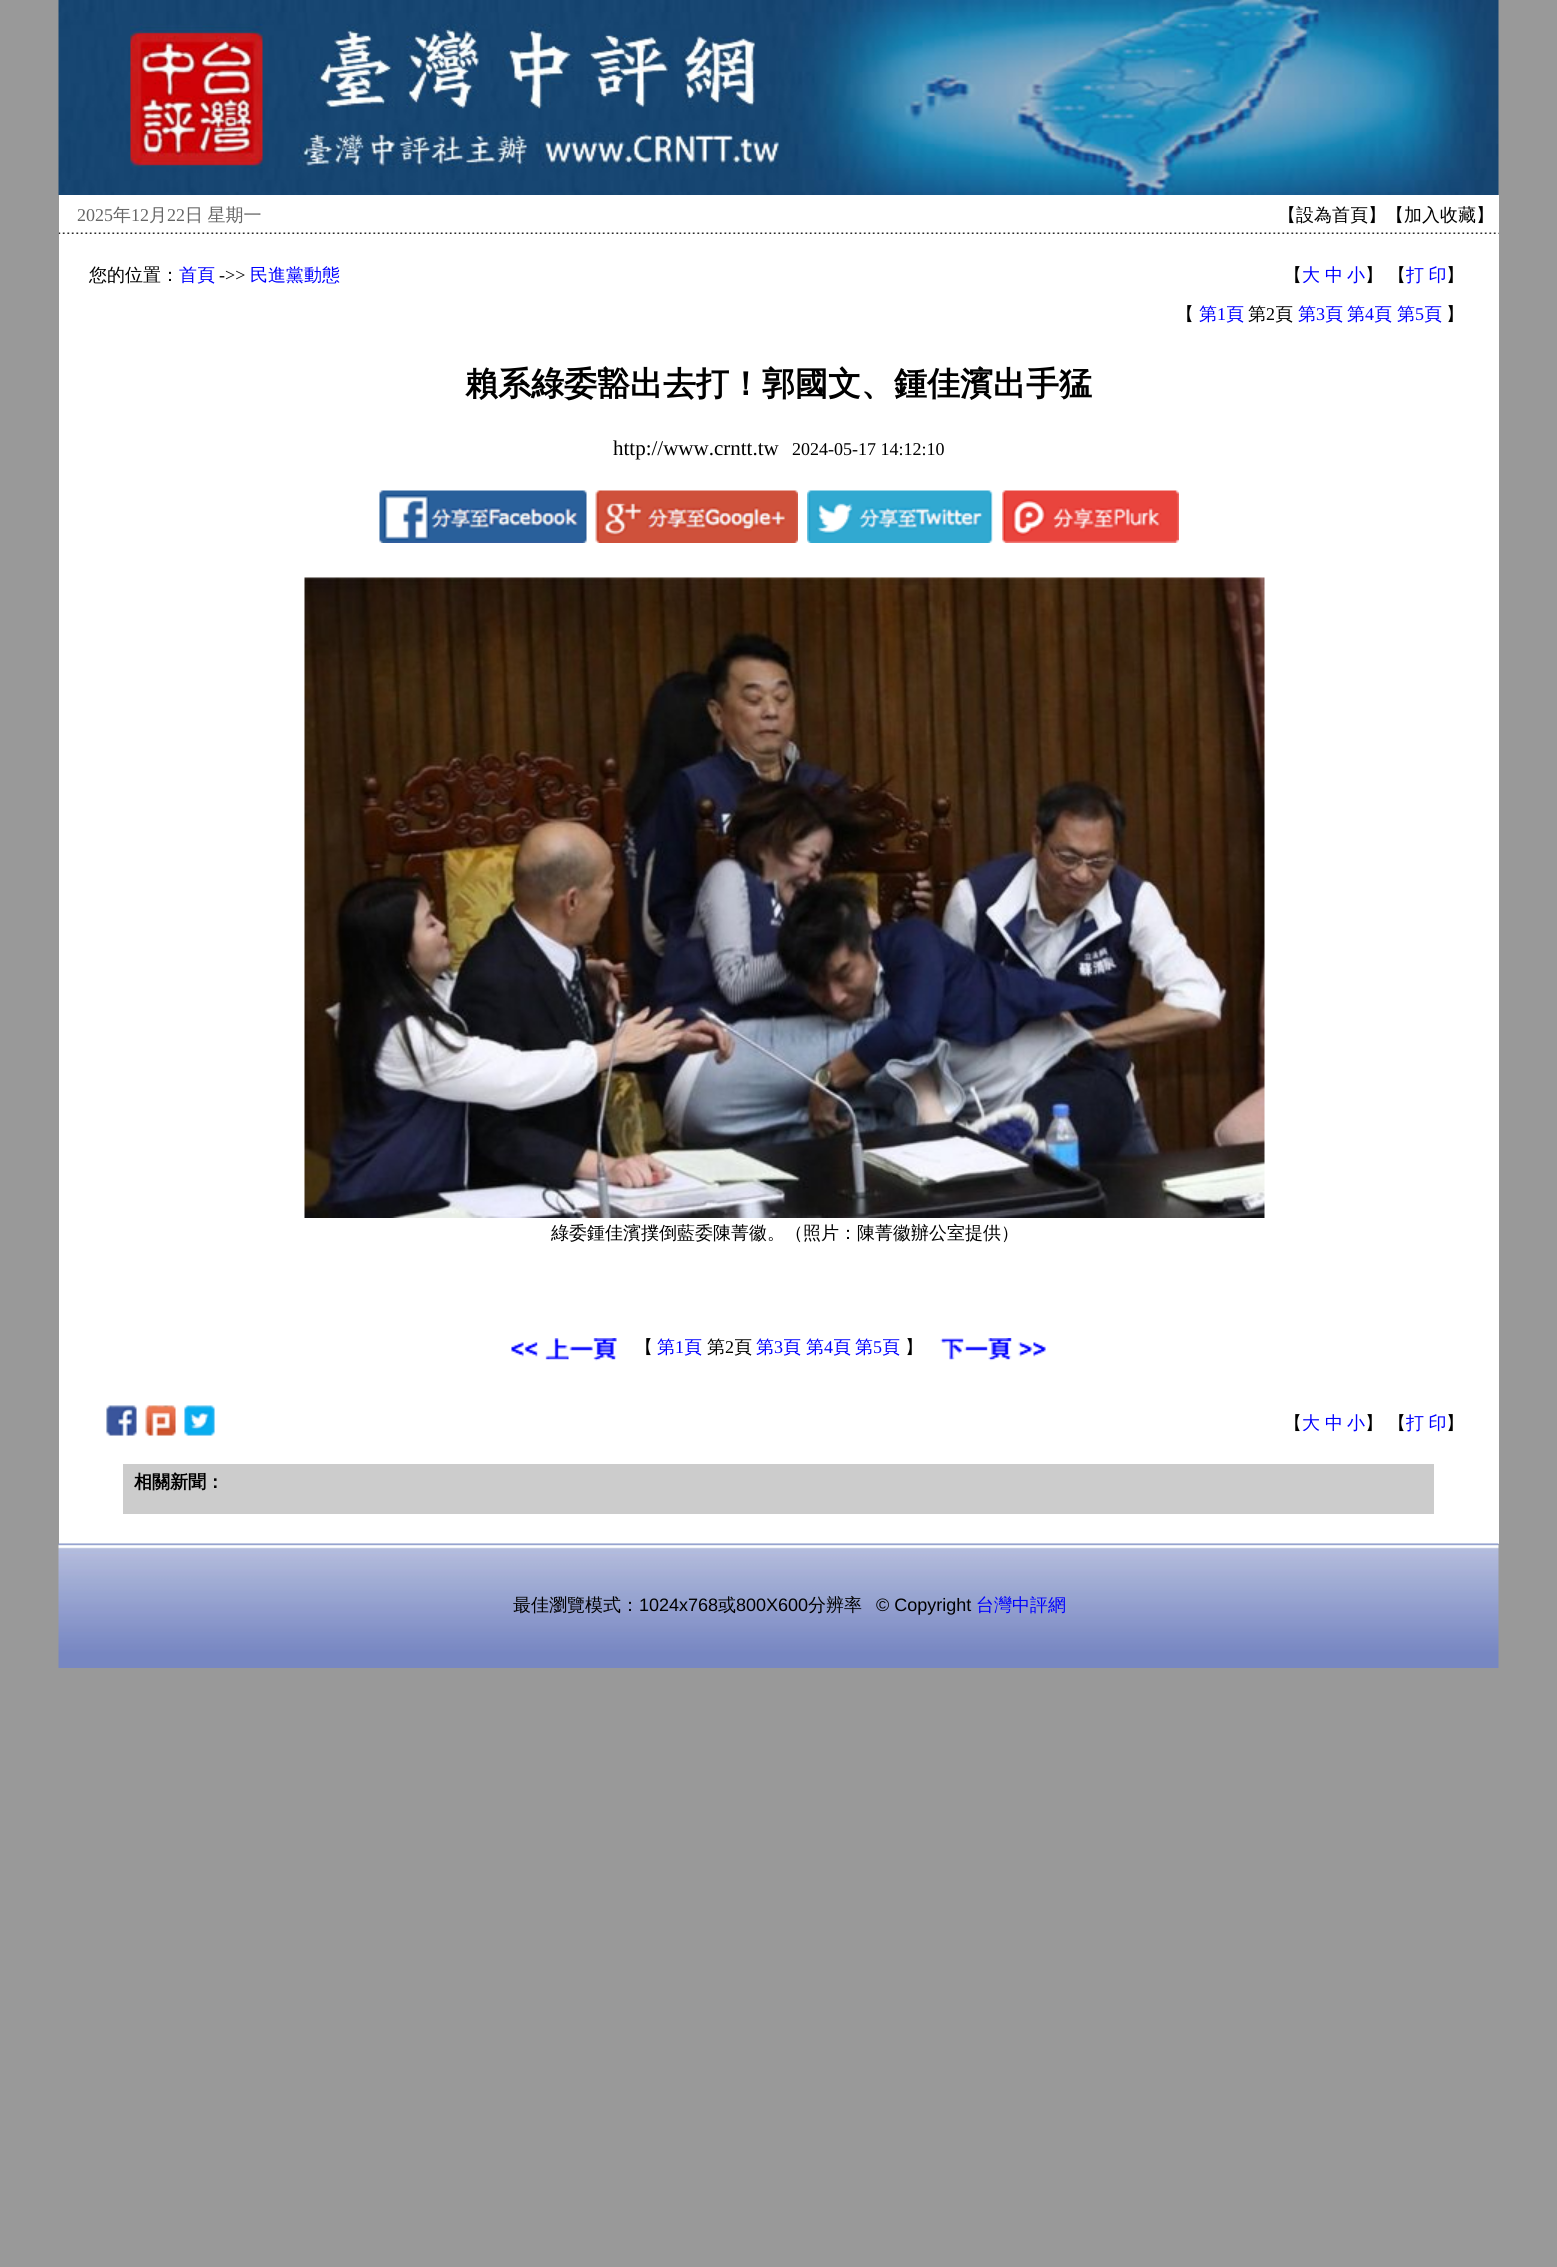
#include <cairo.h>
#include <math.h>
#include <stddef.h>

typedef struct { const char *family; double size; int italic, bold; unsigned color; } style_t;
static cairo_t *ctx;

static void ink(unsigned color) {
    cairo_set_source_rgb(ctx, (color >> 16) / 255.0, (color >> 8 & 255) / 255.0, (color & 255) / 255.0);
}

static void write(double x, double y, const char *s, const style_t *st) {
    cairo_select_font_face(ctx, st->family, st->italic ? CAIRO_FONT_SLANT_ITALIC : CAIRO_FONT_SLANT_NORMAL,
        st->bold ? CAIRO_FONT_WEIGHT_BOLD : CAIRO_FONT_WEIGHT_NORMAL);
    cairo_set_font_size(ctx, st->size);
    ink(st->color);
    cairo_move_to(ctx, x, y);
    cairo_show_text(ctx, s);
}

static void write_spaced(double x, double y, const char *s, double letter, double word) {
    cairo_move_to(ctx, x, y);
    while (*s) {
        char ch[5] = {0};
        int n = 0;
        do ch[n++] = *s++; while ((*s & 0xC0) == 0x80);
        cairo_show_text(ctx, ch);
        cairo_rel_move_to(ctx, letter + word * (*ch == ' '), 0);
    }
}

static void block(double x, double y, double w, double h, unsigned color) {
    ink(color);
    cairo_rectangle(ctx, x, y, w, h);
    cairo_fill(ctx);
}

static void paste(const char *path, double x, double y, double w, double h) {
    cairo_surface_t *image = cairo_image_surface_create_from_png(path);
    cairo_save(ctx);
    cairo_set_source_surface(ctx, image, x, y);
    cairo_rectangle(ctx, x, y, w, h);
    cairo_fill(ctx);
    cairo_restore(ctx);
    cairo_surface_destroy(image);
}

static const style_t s1 = {"Liberation Serif", 18, 0, 0, 0x666666};
static const style_t s2 = {"WenQuanYi Zen Hei Medium", 18, 0, 0, 0x666666};
static const style_t s3 = {"WenQuanYi Zen Hei Medium", 18, 0, 0, 0x000000};
static const style_t s4 = {"WenQuanYi Zen Hei Medium", 18, 0, 0, 0x0000ff};
static const style_t s5 = {"Liberation Serif", 18, 0, 0, 0x000000};
static const style_t s6 = {"Liberation Serif", 18, 0, 0, 0x0000ff};
static const style_t s7 = {"WenQuanYi Zen Hei", 33, 0, 1, 0x000000};
static const style_t s8 = {"Liberation Serif", 21, 0, 0, 0x000000};
static const style_t s9 = {"WenQuanYi Zen Hei", 18, 0, 1, 0x000000};
static const style_t s10 = {"Liberation Sans", 18, 0, 0, 0x000000};

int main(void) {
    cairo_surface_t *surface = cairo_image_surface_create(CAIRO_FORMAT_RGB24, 1557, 2267);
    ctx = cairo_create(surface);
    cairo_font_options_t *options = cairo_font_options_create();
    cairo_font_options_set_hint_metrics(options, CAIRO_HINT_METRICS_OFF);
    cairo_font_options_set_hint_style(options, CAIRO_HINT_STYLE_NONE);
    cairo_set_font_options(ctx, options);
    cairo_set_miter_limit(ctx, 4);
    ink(0x999999);
    cairo_paint(ctx);
    paste("pic1.png", 58, 0, 1441, 195);
    block(59, 195, 1440, 38, 0xffffff);
    write(77, 221, "2025", &s1);
    write(113, 221, "年", &s2);
    write(131, 221, "12", &s1);
    write(149, 221, "月", &s2);
    write(167, 221, "22", &s1);
    cairo_select_font_face(ctx, "WenQuanYi Zen Hei Medium", CAIRO_FONT_SLANT_NORMAL, CAIRO_FONT_WEIGHT_NORMAL);
    write_spaced(185, 221, "日 星期一", 0, -1);
    write(1278, 221, "【設為首頁】【加入收藏】", &s3);
    paste("pic2.png", 58, 232, 1441, 2);
    block(59, 234, 1440, 1310, 0xffffff);
    write(89, 281, "您的位置：", &s3);
    write(179, 281, "首頁", &s4);
    write(219, 281, "->>", &s5);
    write(250, 281, "民進黨動態", &s4);
    write(1284, 281, "【", &s3);
    write(1302, 281, "大", &s4);
    write(1325, 281, "中", &s4);
    write(1347, 281, "小", &s4);
    write(1365, 281, "】", &s3);
    write(1388, 281, "【", &s3);
    ink(0x0000ff);
    write_spaced(1406, 281, "打 印", 0, -1);
    write(1446, 281, "】", &s3);
    write(1176, 320, "【", &s3);
    write(1199, 320, "第", &s4);
    write(1217, 320, "1", &s6);
    write(1226, 320, "頁", &s4);
    write(1248, 320, "第", &s3);
    write(1266, 320, "2", &s5);
    write(1275, 320, "頁", &s3);
    write(1298, 320, "第", &s4);
    write(1316, 320, "3", &s6);
    write(1325, 320, "頁", &s4);
    write(1347, 320, "第", &s4);
    write(1365, 320, "4", &s6);
    write(1374, 320, "頁", &s4);
    write(1397, 320, "第", &s4);
    write(1415, 320, "5", &s6);
    write(1424, 320, "頁", &s4);
    write(1446, 320, "】", &s3);
    write(465, 395, "賴系綠委豁出去打！郭國文、鍾佳濱出手猛", &s7);
    write(613, 455, "http://www.crntt.tw", &s8);
    write(792, 455, "2024-05-17 14:12:10", &s5);
    paste("pic3.png", 379, 490, 208, 53);
    paste("pic4.png", 595, 490, 203, 53);
    paste("pic5.png", 807, 490, 186, 53);
    paste("pic6.png", 1002, 490, 177, 53);
    paste("pic7.png", 304, 577, 961, 641);
    write(551, 1239, "綠委鍾佳濱撲倒藍委陳菁徽。（照片：陳菁徽辦公室提供）", &s3);
    paste("pic8.png", 511, 1338, 106, 23);
    write(635, 1353, "【", &s3);
    write(657, 1353, "第", &s4);
    write(675, 1353, "1", &s6);
    write(684, 1353, "頁", &s4);
    write(707, 1353, "第", &s3);
    write(725, 1353, "2", &s5);
    write(734, 1353, "頁", &s3);
    write(756, 1353, "第", &s4);
    write(774, 1353, "3", &s6);
    write(783, 1353, "頁", &s4);
    write(806, 1353, "第", &s4);
    write(824, 1353, "4", &s6);
    write(833, 1353, "頁", &s4);
    write(855, 1353, "第", &s4);
    write(873, 1353, "5", &s6);
    write(882, 1353, "頁", &s4);
    write(905, 1353, "】", &s3);
    paste("pic9.png", 940, 1338, 106, 23);
    paste("pic10.png", 106, 1405, 31, 31);
    paste("pic11.png", 145, 1405, 31, 31);
    paste("pic12.png", 184, 1405, 31, 31);
    write(1284, 1429, "【", &s3);
    write(1302, 1429, "大", &s4);
    write(1325, 1429, "中", &s4);
    write(1347, 1429, "小", &s4);
    write(1365, 1429, "】", &s3);
    write(1388, 1429, "【", &s3);
    ink(0x0000ff);
    write_spaced(1406, 1429, "打 印", 0, -1);
    write(1446, 1429, "】", &s3);
    block(123, 1464, 1311, 50, 0xcccccc);
    write(134, 1488, "相關新聞：", &s9);
    paste("pic13.png", 58, 1543, 1441, 125);
    write(513, 1611, "最佳瀏覽模式：", &s3);
    write(639, 1611, "1024x768", &s10);
    write(718, 1611, "或", &s3);
    write(736, 1611, "800X600", &s10);
    write(808, 1611, "分辨率", &s3);
    write(876, 1611, "© Copyright", &s10);
    write(976, 1611, "台灣中評網", &s4);
    cairo_surface_write_to_png(surface, "screenshot.png");
    cairo_font_options_destroy(options);
    cairo_destroy(ctx);
    cairo_surface_destroy(surface);
    return 0;
}
